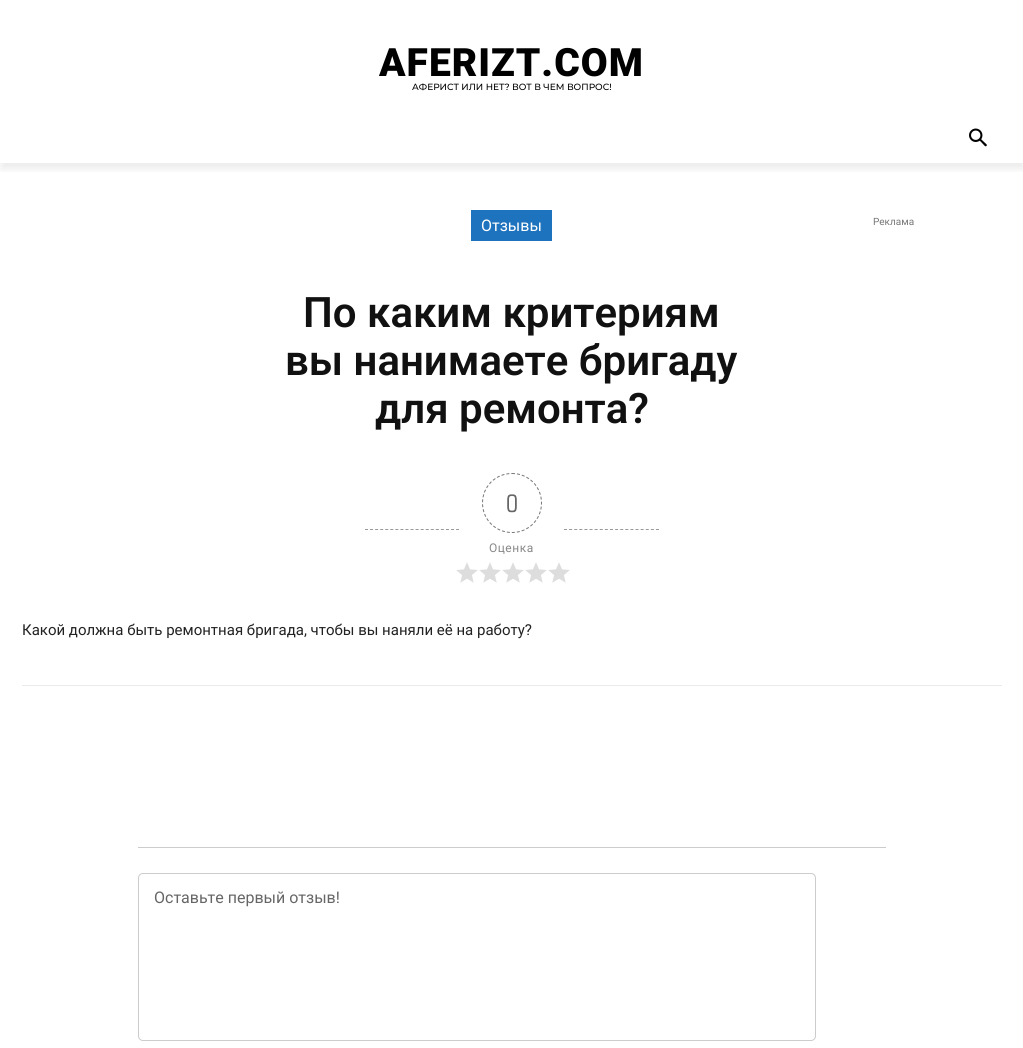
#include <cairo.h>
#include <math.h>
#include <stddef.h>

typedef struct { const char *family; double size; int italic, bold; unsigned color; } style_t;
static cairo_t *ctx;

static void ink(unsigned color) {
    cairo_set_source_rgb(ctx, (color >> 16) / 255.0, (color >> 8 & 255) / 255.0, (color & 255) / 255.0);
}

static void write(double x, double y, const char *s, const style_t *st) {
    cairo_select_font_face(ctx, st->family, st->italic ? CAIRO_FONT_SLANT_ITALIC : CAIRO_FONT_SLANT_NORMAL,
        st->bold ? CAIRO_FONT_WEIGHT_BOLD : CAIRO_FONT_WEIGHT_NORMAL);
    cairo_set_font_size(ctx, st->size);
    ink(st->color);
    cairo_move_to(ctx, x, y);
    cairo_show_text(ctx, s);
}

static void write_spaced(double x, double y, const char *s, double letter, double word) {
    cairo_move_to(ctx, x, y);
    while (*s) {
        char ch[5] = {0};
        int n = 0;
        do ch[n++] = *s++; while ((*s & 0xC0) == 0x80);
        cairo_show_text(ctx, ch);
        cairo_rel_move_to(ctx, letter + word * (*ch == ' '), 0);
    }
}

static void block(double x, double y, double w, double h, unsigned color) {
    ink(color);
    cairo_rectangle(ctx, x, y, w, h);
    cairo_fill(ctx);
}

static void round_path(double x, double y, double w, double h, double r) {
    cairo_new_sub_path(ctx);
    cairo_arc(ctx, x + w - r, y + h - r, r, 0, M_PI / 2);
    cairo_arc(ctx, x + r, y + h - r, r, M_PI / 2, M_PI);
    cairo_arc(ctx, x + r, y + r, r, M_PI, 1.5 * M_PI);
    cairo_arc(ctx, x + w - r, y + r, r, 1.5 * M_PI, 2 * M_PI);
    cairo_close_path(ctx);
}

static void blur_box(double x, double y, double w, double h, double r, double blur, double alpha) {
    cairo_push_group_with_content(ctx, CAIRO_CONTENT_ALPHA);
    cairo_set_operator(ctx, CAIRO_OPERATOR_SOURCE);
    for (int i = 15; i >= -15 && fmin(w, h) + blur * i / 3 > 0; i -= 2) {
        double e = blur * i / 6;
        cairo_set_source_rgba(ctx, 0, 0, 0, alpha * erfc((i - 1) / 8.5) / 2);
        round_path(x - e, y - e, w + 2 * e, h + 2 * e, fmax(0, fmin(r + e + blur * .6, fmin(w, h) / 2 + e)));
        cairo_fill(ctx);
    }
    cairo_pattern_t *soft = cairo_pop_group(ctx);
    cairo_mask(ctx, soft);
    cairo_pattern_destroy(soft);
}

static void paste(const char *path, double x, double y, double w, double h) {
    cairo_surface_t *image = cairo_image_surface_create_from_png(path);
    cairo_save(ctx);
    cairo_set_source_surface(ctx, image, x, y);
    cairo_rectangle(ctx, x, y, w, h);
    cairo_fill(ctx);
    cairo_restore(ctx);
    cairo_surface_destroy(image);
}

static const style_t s1 = {"Montserrat Medium", 9, 0, 0, 0x000000};
static const style_t s2 = {"Roboto", 16, 0, 0, 0xffffff};
static const style_t s3 = {"Roboto SemiBold", 42, 0, 0, 0x111111};
static const style_t s4 = {"Roboto", 10, 0, 0, 0x767676};
static const style_t s5 = {"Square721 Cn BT", 24, 0, 0, 0x666666};
static const style_t s6 = {"Roboto", 15, 0, 0, 0x222222};
static const style_t s7 = {"Roboto", 16, 0, 0, 0x666666};

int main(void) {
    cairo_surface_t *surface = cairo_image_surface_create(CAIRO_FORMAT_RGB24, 1023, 1048);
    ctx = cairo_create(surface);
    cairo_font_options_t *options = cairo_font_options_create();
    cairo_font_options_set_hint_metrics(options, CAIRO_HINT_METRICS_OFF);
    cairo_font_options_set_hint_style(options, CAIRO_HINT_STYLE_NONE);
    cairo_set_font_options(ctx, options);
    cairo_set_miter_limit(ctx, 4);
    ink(0xffffff);
    cairo_paint(ctx);
    cairo_select_font_face(ctx, "Roboto Black", CAIRO_FONT_SLANT_NORMAL, CAIRO_FONT_WEIGHT_NORMAL);
    cairo_set_font_size(ctx, 39);
    ink(0x000000);
    write_spaced(379, 76, "AFERIZT.COM", 1, 0);
    write(412, 90, "АФЕРИСТ ИЛИ НЕТ? ВОТ В ЧЕМ ВОПРОС!", &s1);
    cairo_save(ctx);
    cairo_rectangle(ctx, 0, 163, 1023, 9);
    cairo_clip(ctx);
    ink(0x000000);
    blur_box(1, 121, 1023, 48, 0, 4, 0.08);
    cairo_restore(ctx);
    paste("pic1.png", 969, 128, 18, 19);
    block(471, 210, 81, 31, 0x1e73be);
    write(481, 231, "Отзывы", &s2);
    write(303, 327, "По каким критериям", &s3);
    write(285, 375, "вы нанимаете бригаду", &s3);
    write(375, 423, "для ремонта?", &s3);
    write(873, 225, "Реклама", &s4);
    cairo_new_path(ctx);
    cairo_move_to(ctx, 365, 529.5);
    cairo_line_to(ctx, 459, 529.5);
    ink(0x999999);
    cairo_set_line_width(ctx, 1);
    cairo_set_dash(ctx, (double[]){3, 2.06}, 2, 0);
    cairo_stroke(ctx);
    cairo_new_path(ctx);
    cairo_move_to(ctx, 512, 473.5);
    cairo_curve_to(ctx, 528.5, 473.5, 541.5, 486.5, 541.5, 503);
    cairo_curve_to(ctx, 541.5, 519.5, 528.5, 532.5, 512, 532.5);
    cairo_curve_to(ctx, 495.5, 532.5, 482.5, 519.5, 482.5, 503);
    cairo_curve_to(ctx, 482.5, 486.5, 495.5, 473.5, 512, 473.5);
    cairo_close_path(ctx);
    ink(0x777777);
    cairo_set_dash(ctx, (double[]){3, 2}, 2, 0);
    cairo_stroke(ctx);
    write(506, 512, "0", &s5);
    cairo_select_font_face(ctx, "Roboto", CAIRO_FONT_SLANT_NORMAL, CAIRO_FONT_WEIGHT_NORMAL);
    cairo_set_font_size(ctx, 12);
    ink(0x888888);
    write_spaced(489, 552, "Оценка", 0.5, 0);
    paste("pic2.png", 456, 562, 22, 21);
    paste("pic2.png", 479, 562, 22, 21);
    paste("pic2.png", 502, 562, 22, 21);
    paste("pic2.png", 525, 562, 22, 21);
    paste("pic2.png", 548, 562, 22, 21);
    cairo_new_path(ctx);
    cairo_move_to(ctx, 564, 529.5);
    cairo_line_to(ctx, 659, 529.5);
    ink(0x999999);
    cairo_set_dash(ctx, (double[]){3, 2.11}, 2, 0);
    cairo_stroke(ctx);
    write(22, 635, "Какой должна быть ремонтная бригада, чтобы вы наняли её на работу?", &s6);
    block(22, 685, 980, 1, 0xebebeb);
    block(138, 847, 748, 1, 0xcccccc);
    round_path(138.5, 873.5, 677, 167, 4.5);
    cairo_set_dash(ctx, NULL, 0, 0);
    cairo_stroke(ctx);
    write(154, 903, "Оставьте первый отзыв!", &s7);
    cairo_surface_write_to_png(surface, "screenshot.png");
    cairo_font_options_destroy(options);
    cairo_destroy(ctx);
    cairo_surface_destroy(surface);
    return 0;
}
